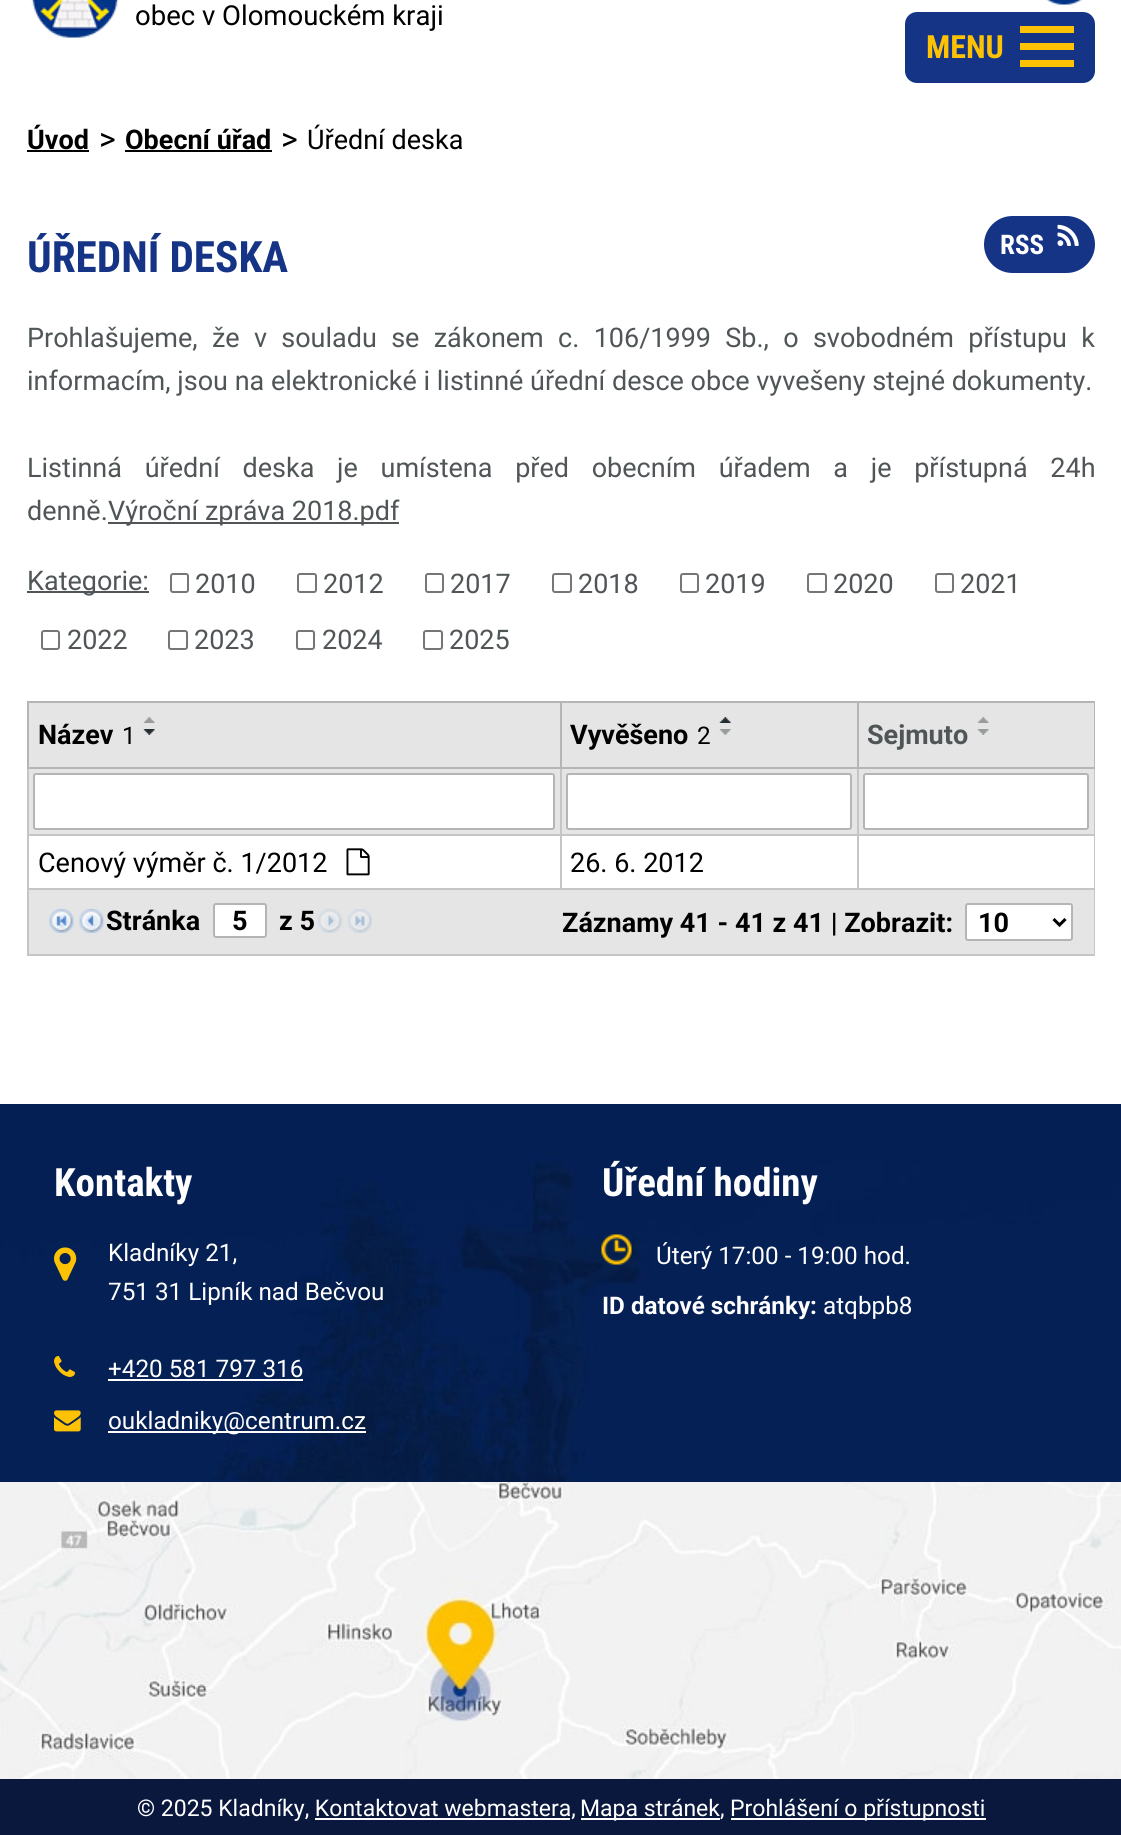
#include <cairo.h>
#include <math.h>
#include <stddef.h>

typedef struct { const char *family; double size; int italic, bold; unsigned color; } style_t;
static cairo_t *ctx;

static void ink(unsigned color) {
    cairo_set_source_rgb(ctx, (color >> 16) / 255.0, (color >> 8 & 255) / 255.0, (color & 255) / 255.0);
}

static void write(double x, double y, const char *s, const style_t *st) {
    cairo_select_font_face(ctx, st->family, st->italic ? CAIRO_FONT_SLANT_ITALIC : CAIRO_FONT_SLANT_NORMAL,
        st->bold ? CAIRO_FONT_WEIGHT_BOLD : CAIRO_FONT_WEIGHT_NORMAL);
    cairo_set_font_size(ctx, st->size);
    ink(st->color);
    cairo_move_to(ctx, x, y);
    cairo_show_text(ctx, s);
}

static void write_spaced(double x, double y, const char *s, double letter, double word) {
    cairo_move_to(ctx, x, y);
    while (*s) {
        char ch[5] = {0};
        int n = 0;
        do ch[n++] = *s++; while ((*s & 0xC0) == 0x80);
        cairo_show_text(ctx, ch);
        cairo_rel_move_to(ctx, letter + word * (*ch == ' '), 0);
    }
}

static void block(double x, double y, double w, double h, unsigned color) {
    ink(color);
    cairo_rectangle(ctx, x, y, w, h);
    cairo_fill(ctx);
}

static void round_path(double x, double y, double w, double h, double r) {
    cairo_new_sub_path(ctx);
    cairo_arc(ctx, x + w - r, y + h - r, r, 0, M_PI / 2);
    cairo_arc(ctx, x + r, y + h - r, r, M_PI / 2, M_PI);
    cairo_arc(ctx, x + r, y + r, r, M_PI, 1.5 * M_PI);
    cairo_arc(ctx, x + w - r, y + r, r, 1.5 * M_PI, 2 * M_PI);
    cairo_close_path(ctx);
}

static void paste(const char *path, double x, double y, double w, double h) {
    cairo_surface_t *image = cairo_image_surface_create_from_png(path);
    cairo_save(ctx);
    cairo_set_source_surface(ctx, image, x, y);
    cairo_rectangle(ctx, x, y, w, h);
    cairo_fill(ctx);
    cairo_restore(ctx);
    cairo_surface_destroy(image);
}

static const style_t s1 = {"Roboto", 27.5, 0, 0, 0x000000};
static const style_t s2 = {"Roboto Condensed", 32, 0, 1, 0xfdc203};
static const style_t s3 = {"Roboto", 27, 0, 1, 0x000000};
static const style_t s4 = {"Roboto", 32, 0, 0, 0x000000};
static const style_t s5 = {"Roboto", 27, 0, 0, 0x000000};
static const style_t s6 = {"Roboto Condensed", 43.25, 0, 1, 0x153486};
static const style_t s7 = {"Roboto Condensed", 27, 0, 1, 0xffffff};
static const style_t s8 = {"Roboto", 27, 0, 0, 0x505658};
static const style_t s9 = {"Roboto", 24.25, 0, 0, 0x000000};
static const style_t s10 = {"Roboto", 27, 0, 1, 0x505658};
static const style_t s11 = {"Roboto Condensed", 39, 0, 1, 0xffffff};
static const style_t s12 = {"Roboto", 24.25, 0, 0, 0xffffff};
static const style_t s13 = {"Roboto", 24.25, 0, 1, 0xffffff};
static const style_t s14 = {"Roboto", 23, 0, 0, 0xffffff};

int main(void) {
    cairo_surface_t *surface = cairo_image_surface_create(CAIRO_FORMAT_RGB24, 1121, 1835);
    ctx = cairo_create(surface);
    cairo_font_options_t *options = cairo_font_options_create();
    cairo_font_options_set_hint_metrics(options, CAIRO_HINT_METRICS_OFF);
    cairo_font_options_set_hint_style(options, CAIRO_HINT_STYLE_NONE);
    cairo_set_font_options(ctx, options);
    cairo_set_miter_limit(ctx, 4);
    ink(0xffffff);
    cairo_paint(ctx);
    paste("pic1.png", 1046, 0, 37, 5);
    paste("pic2.png", 31, 0, 88, 38);
    write(135, 25, "obec v Olomouckém kraji", &s1);
    ink(0x153486);
    round_path(905, 12, 190, 71, 12);
    cairo_fill(ctx);
    write(926, 58, "MENU", &s2);
    cairo_new_path(ctx);
    cairo_move_to(ctx, 1020, 67);
    cairo_line_to(ctx, 1020, 60);
    cairo_line_to(ctx, 1074, 60);
    cairo_line_to(ctx, 1074, 67);
    cairo_close_path(ctx);
    cairo_move_to(ctx, 1020, 26);
    cairo_line_to(ctx, 1074, 26);
    cairo_line_to(ctx, 1074, 33);
    cairo_line_to(ctx, 1020, 33);
    cairo_close_path(ctx);
    cairo_move_to(ctx, 1020, 50);
    cairo_line_to(ctx, 1020, 43);
    cairo_line_to(ctx, 1074, 43);
    cairo_line_to(ctx, 1074, 50);
    cairo_close_path(ctx);
    cairo_fill(ctx);
    write(27, 149, "Úvod", &s3);
    block(27, 150, 62, 2, 0x000000);
    write(99, 150, ">", &s4);
    write(125, 149, "Obecní úřad", &s3);
    block(125, 150, 147, 2, 0x000000);
    write(281, 150, ">", &s4);
    write(307, 149, "Úřední deska", &s5);
    write(27, 272, "ÚŘEDNÍ DESKA", &s6);
    round_path(984, 216, 111, 57, 28.5);
    cairo_fill(ctx);
    write(1000, 254, "RSS", &s7);
    paste("pic3.png", 1057, 224, 22, 22);
    cairo_select_font_face(ctx, "Roboto", CAIRO_FONT_SLANT_NORMAL, CAIRO_FONT_WEIGHT_NORMAL);
    ink(0x505658);
    write_spaced(27, 347, "Prohlašujeme, že v souladu se zákonem c. 106/1999 Sb., o svobodném přístupu k", 0, 7.6);
    write(27, 390, "informacím, jsou na elektronické i listinné úřední desce obce vyvešeny stejné dokumenty.", &s8);
    write_spaced(27, 477, "Listinná úřední deska je umístena před obecním úřadem a je přístupná 24h", 0, 16);
    write(27, 520, "denně.", &s8);
    block(108, 522, 291, 2, 0x505658);
    write(108, 520, "Výroční zpráva 2018.pdf", &s8);
    block(27, 591, 122, 2, 0x505658);
    write(27, 590, "Kategorie:", &s8);
    round_path(171, 574, 17, 18, 2);
    ink(0x767676);
    cairo_stroke(ctx);
    write(195, 593, "2010", &s8);
    round_path(298, 574, 18, 18, 2);
    ink(0x767676);
    cairo_stroke(ctx);
    write(323, 593, "2012", &s8);
    round_path(426, 574, 17, 18, 2);
    ink(0x767676);
    cairo_stroke(ctx);
    write(450, 593, "2017", &s8);
    round_path(553, 574, 18, 18, 2);
    ink(0x767676);
    cairo_stroke(ctx);
    write(578, 593, "2018", &s8);
    round_path(681, 574, 17, 18, 2);
    ink(0x767676);
    cairo_stroke(ctx);
    write(705, 593, "2019", &s8);
    round_path(808, 574, 18, 18, 2);
    ink(0x767676);
    cairo_stroke(ctx);
    write(833, 593, "2020", &s8);
    round_path(936, 574, 17, 18, 2);
    ink(0x767676);
    cairo_stroke(ctx);
    write(960, 593, "2021", &s8);
    round_path(42, 631, 17, 18, 2);
    ink(0x767676);
    cairo_stroke(ctx);
    write(67, 649, "2022", &s8);
    round_path(169, 631, 18, 18, 2);
    ink(0x767676);
    cairo_stroke(ctx);
    write(194, 649, "2023", &s8);
    round_path(297, 631, 17, 18, 2);
    ink(0x767676);
    cairo_stroke(ctx);
    write(322, 649, "2024", &s8);
    round_path(424, 631, 18, 18, 2);
    ink(0x767676);
    cairo_stroke(ctx);
    write(449, 649, "2025", &s8);
    block(29, 703, 531, 64, 0xe5e5e5);
    block(857, 701, 238, 2, 0xb5b5b5);
    block(857, 834, 238, 2, 0xc5c5c5);
    block(1094, 767, 1, 123, 0xc5c5c5);
    block(1094, 701, 1, 67, 0xb5b5b5);
    block(29, 769, 1065, 65, 0xe5e5e5);
    block(857, 888, 238, 2, 0xc5c5c5);
    block(857, 834, 2, 56, 0xc5c5c5);
    block(560, 834, 298, 2, 0xc5c5c5);
    block(857, 767, 2, 69, 0xc5c5c5);
    block(857, 767, 238, 2, 0xb5b5b5);
    block(857, 701, 2, 67, 0xb5b5b5);
    block(560, 701, 298, 2, 0xb5b5b5);
    block(560, 888, 298, 2, 0xc5c5c5);
    block(560, 834, 2, 56, 0xc5c5c5);
    block(27, 834, 534, 2, 0xc5c5c5);
    block(560, 767, 2, 69, 0xc5c5c5);
    block(560, 767, 298, 2, 0xb5b5b5);
    block(560, 701, 2, 67, 0xb5b5b5);
    block(27, 701, 534, 2, 0xb5b5b5);
    block(27, 888, 534, 2, 0xc5c5c5);
    block(27, 767, 2, 123, 0xc5c5c5);
    block(27, 767, 534, 2, 0xb5b5b5);
    block(27, 701, 2, 67, 0xb5b5b5);
    write(38, 744, "Název", &s3);
    write(122, 744, "1", &s9);
    paste("pic4.png", 143, 717, 12, 6);
    paste("pic5.png", 143, 729, 12, 6);
    block(562, 703, 295, 64, 0xe5e5e5);
    write(570, 744, "Vyvěšeno", &s3);
    write(697, 744, "2", &s9);
    paste("pic6.png", 719, 717, 12, 6);
    paste("pic7.png", 719, 729, 12, 6);
    block(859, 703, 235, 64, 0xe5e5e5);
    write(867, 744, "Sejmuto", &s10);
    paste("pic4.png", 977, 717, 12, 6);
    paste("pic8.png", 977, 729, 12, 6);
    ink(0xffffff);
    round_path(34, 774, 520, 55, 2);
    cairo_fill_preserve(ctx);
    ink(0xb5b5b5);
    cairo_stroke(ctx);
    ink(0xffffff);
    round_path(567, 774, 284, 55, 2);
    cairo_fill_preserve(ctx);
    ink(0xb5b5b5);
    cairo_stroke(ctx);
    ink(0xffffff);
    round_path(864, 774, 224, 55, 2);
    cairo_fill_preserve(ctx);
    ink(0xb5b5b5);
    cairo_stroke(ctx);
    write(38, 872, "Cenový výměr č. 1/2012", &s5);
    paste("pic9.png", 346, 848, 24, 28);
    write(570, 872, "26. 6. 2012", &s5);
    block(29, 890, 1065, 64, 0xe5e5e5);
    block(1094, 888, 1, 68, 0xc5c5c5);
    block(27, 954, 1068, 2, 0xc5c5c5);
    block(27, 888, 2, 68, 0xc5c5c5);
    paste("pic10.png", 49, 909, 25, 24);
    paste("pic11.png", 79, 909, 25, 24);
    write(106, 930, "Stránka", &s3);
    ink(0xffffff);
    round_path(214, 904, 52, 33, 2);
    cairo_fill_preserve(ctx);
    ink(0xb5b5b5);
    cairo_stroke(ctx);
    write(232, 930, "5", &s3);
    write(279, 930, "z 5", &s3);
    paste("pic12.png", 318, 909, 24, 24);
    paste("pic13.png", 348, 909, 24, 24);
    write(562, 932, "Záznamy 41 - 41 z 41 | Zobrazit:", &s3);
    ink(0xffffff);
    round_path(966, 904, 106, 36, 2);
    cairo_fill_preserve(ctx);
    ink(0xb5b5b5);
    cairo_stroke(ctx);
    cairo_new_path(ctx);
    cairo_move_to(ctx, 1053.5, 919);
    cairo_line_to(ctx, 1059.5, 925);
    cairo_line_to(ctx, 1065.5, 919);
    ink(0x000000);
    cairo_set_line_width(ctx, 3);
    cairo_stroke(ctx);
    write(978, 932, "10", &s3);
    paste("pic14.png", 0, 1104, 1121, 378);
    write(54, 1196, "Kontakty", &s11);
    paste("pic15.png", 54, 1247, 23, 34);
    write(108, 1261, "Kladníky 21,", &s12);
    write(108, 1300, "751 31 Lipník nad Bečvou", &s12);
    paste("pic16.png", 54, 1356, 21, 21);
    write(108, 1377, "+420 581 797 316", &s12);
    block(108, 1379, 195, 2, 0xffffff);
    paste("pic17.png", 54, 1410, 27, 22);
    block(108, 1431, 258, 2, 0xffffff);
    write(108, 1429, "oukladniky@centrum.cz", &s12);
    write(602, 1196, "Úřední hodiny", &s11);
    paste("pic18.png", 601, 1234, 31, 31);
    write(656, 1264, "Úterý 17:00 - 19:00 hod.", &s12);
    write(602, 1314, "ID datové schránky:", &s13);
    write(823, 1314, "atqbpb8", &s12);
    paste("pic19.png", 0, 1482, 1121, 297);
    block(0, 1779, 1121, 56, 0x0a183e);
    write(137, 1816, "© 2025 Kladníky, Kontaktovat webmastera,", &s14);
    block(581, 1818, 139, 2, 0xffffff);
    write(580, 1816, "Mapa stránek,", &s14);
    block(731, 1818, 255, 2, 0xffffff);
    write(730, 1816, "Prohlášení o přístupnosti", &s14);
    block(315, 1818, 255, 2, 0xffffff);
    cairo_surface_write_to_png(surface, "screenshot.png");
    cairo_font_options_destroy(options);
    cairo_destroy(ctx);
    cairo_surface_destroy(surface);
    return 0;
}
